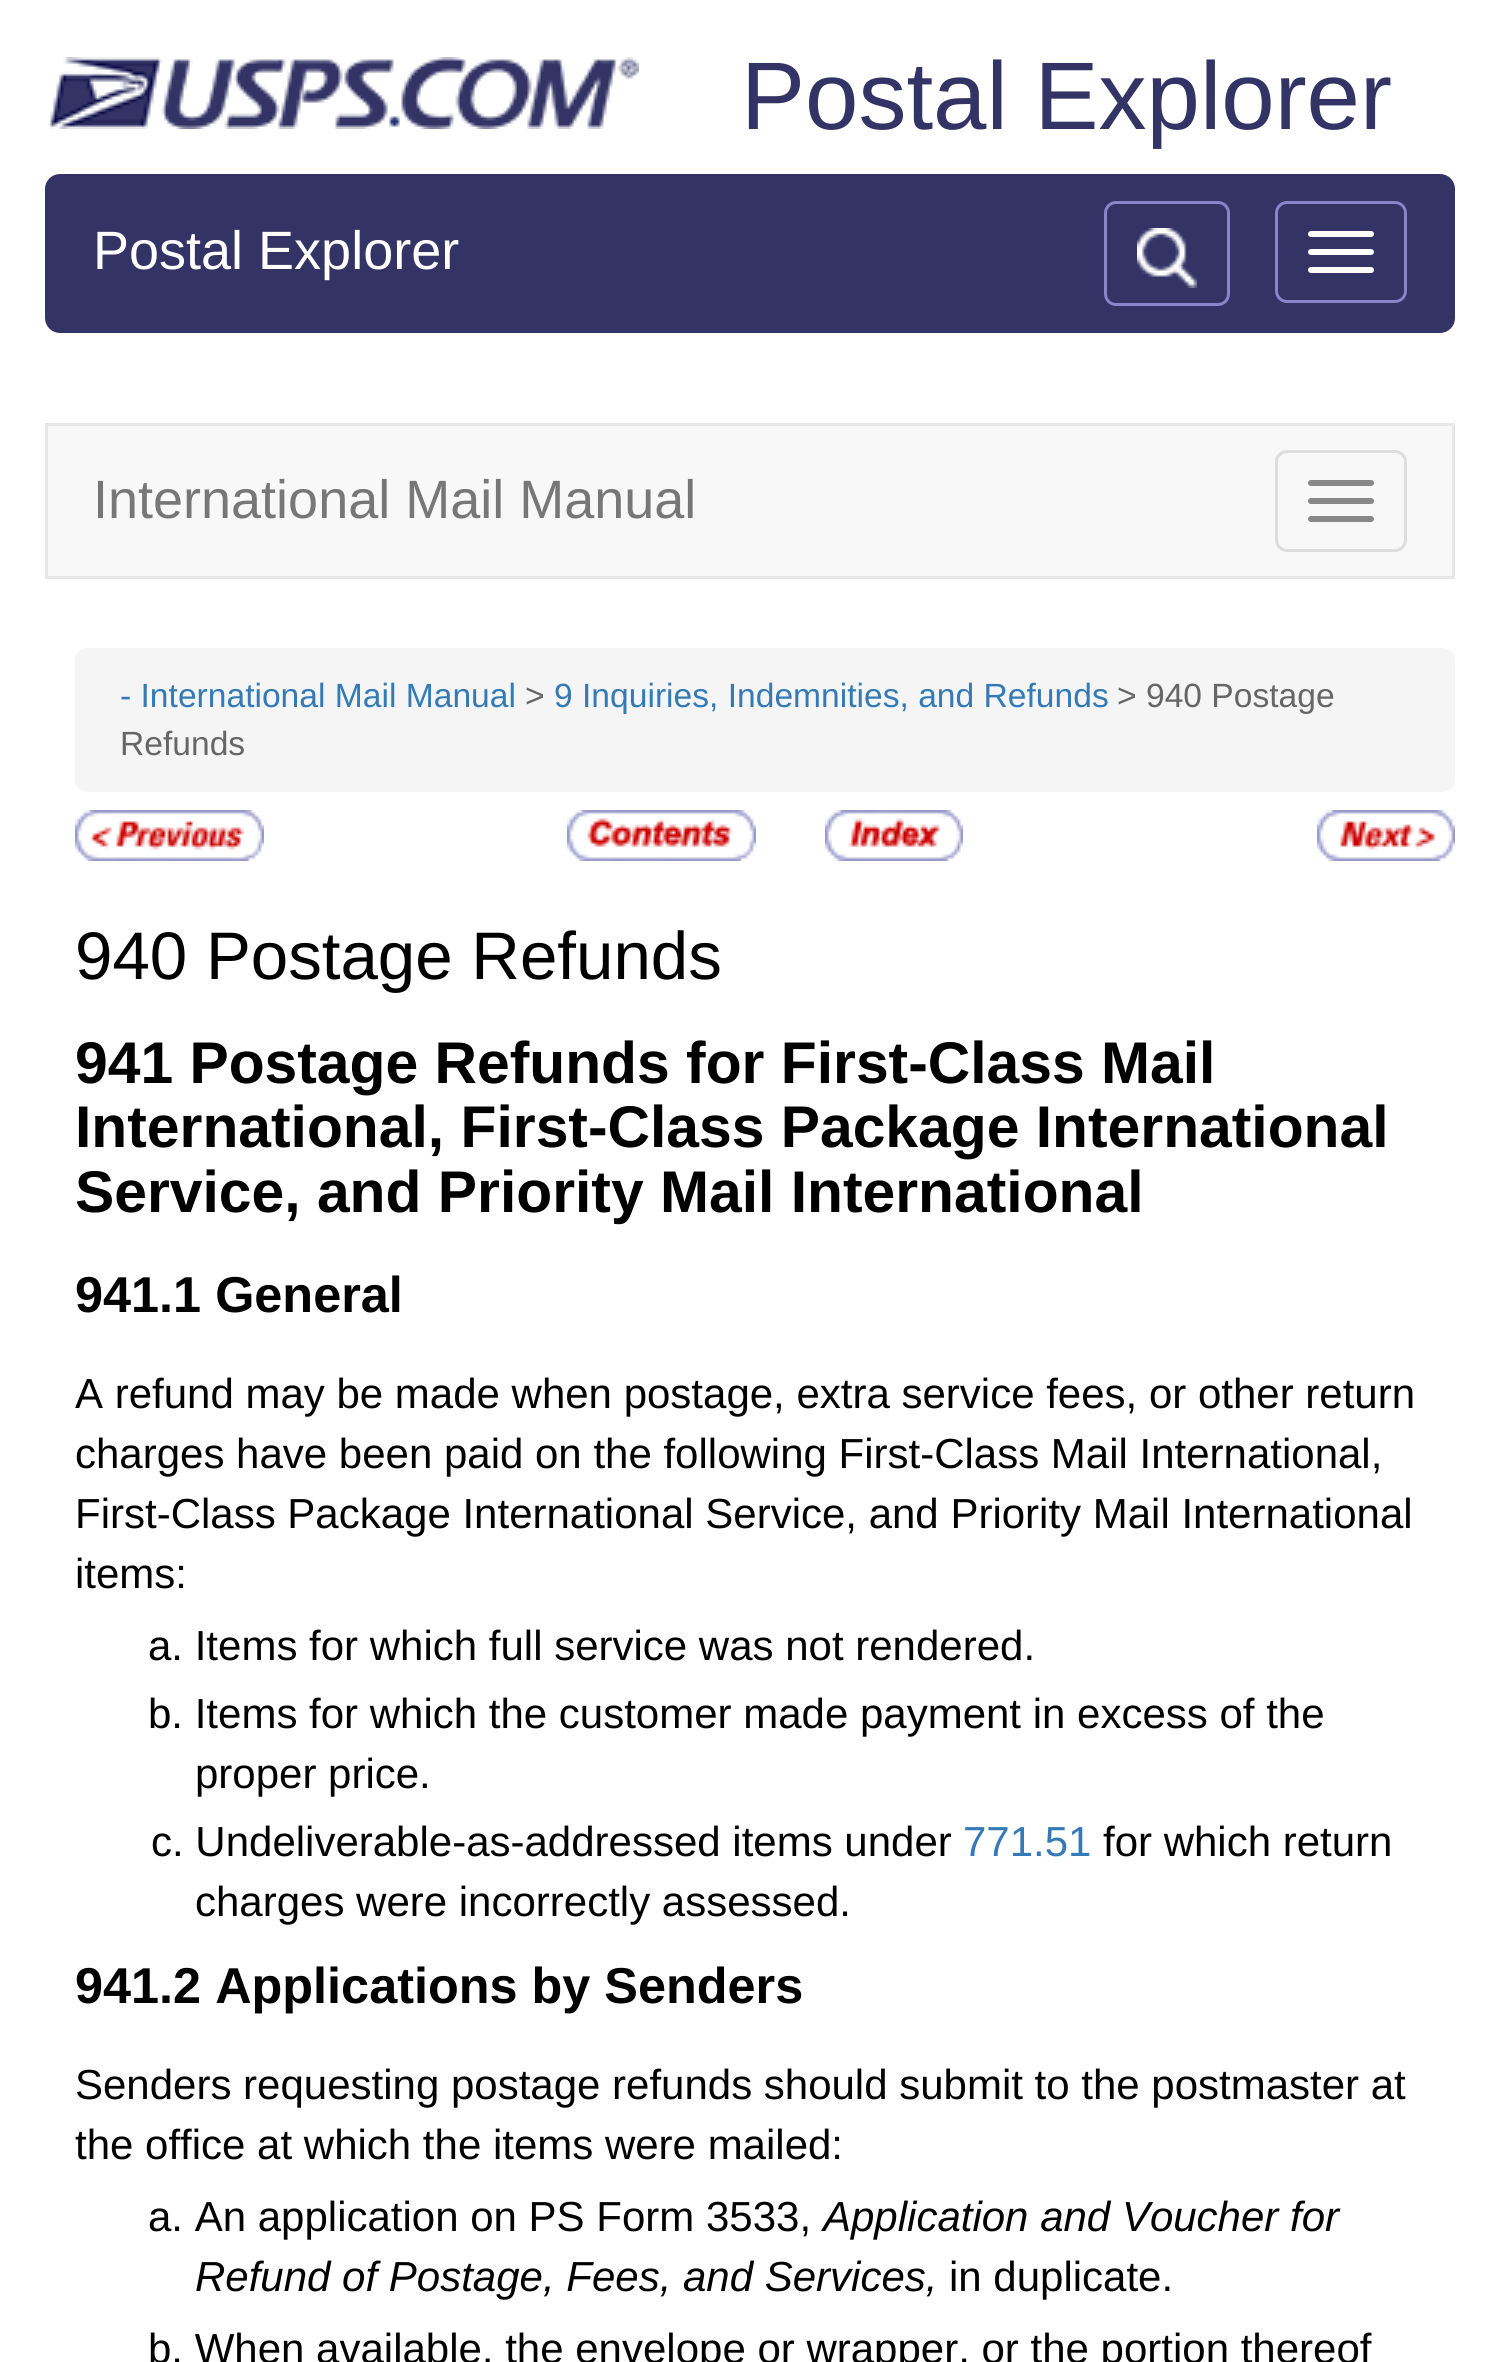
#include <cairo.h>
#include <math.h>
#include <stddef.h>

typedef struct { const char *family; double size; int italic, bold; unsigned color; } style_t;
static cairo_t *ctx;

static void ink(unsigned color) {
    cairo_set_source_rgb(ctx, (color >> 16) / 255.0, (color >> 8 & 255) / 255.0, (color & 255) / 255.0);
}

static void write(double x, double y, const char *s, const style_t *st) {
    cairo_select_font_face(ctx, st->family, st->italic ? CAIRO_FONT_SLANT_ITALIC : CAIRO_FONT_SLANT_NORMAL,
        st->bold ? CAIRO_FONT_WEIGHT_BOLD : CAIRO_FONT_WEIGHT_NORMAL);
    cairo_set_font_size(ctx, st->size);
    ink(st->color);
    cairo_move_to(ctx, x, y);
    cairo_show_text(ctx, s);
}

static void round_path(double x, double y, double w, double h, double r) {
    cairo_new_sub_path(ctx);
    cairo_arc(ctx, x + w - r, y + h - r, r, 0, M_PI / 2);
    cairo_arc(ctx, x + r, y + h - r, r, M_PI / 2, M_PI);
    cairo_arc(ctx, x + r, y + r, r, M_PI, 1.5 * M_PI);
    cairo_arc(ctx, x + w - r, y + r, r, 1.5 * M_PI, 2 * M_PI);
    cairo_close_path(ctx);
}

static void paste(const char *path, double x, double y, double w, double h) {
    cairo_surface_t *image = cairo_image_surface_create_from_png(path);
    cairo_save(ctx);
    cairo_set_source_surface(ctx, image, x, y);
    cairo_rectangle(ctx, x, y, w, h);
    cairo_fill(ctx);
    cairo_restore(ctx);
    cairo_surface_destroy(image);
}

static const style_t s1 = {"Liberation Sans", 96, 0, 0, 0x333366};
static const style_t s2 = {"Liberation Sans", 54, 0, 0, 0xffffff};
static const style_t s3 = {"Liberation Sans", 54, 0, 0, 0x777777};
static const style_t s4 = {"Liberation Sans", 33.6, 0, 0, 0x337ab7};
static const style_t s5 = {"Liberation Sans", 33.6, 0, 0, 0x666666};
static const style_t s6 = {"Liberation Sans", 67.25, 0, 0, 0x000000};
static const style_t s7 = {"Liberation Sans", 58.8, 0, 1, 0x000000};
static const style_t s8 = {"Liberation Sans", 50.4, 0, 1, 0x000000};
static const style_t s9 = {"Liberation Sans", 42, 0, 0, 0x000000};
static const style_t s10 = {"Liberation Sans", 42, 0, 0, 0x337ab7};
static const style_t s11 = {"Liberation Sans", 42, 1, 0, 0x000000};

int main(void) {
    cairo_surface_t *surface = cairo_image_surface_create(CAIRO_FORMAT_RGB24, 1499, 2362);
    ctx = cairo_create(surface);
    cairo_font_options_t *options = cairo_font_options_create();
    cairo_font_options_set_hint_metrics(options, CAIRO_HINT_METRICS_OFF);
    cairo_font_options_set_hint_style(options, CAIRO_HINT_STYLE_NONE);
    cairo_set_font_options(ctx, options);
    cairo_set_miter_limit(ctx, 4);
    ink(0xffffff);
    cairo_paint(ctx);
    paste("pic1.png", 48, 57, 591, 72);
    write(741, 129, "Postal Explorer", &s1);
    round_path(46.5, 175.5, 1407, 156, 13.5);
    cairo_fill_preserve(ctx);
    cairo_set_line_width(ctx, 3);
    cairo_stroke(ctx);
    write(93, 269, "Postal Explorer", &s2);
    round_path(1105.5, 202.5, 123, 102, 10.5);
    ink(0x8686c8);
    cairo_stroke(ctx);
    paste("pic2.png", 1137, 228, 60, 60);
    round_path(1276.5, 202.5, 129, 99, 10.5);
    cairo_stroke(ctx);
    ink(0xffffff);
    round_path(1308, 231, 66, 6, 3);
    cairo_fill(ctx);
    round_path(1308, 249, 66, 6, 3);
    cairo_fill(ctx);
    round_path(1308, 267, 66, 6, 3);
    cairo_fill(ctx);
    ink(0xf8f8f8);
    cairo_rectangle(ctx, 46.5, 424.5, 1407, 153);
    cairo_fill_preserve(ctx);
    ink(0xe7e7e7);
    cairo_stroke(ctx);
    write(93, 518, "International Mail Manual", &s3);
    round_path(1276.5, 451.5, 129, 99, 10.5);
    ink(0xdddddd);
    cairo_stroke(ctx);
    ink(0x888888);
    round_path(1308, 480, 66, 6, 3);
    cairo_fill(ctx);
    round_path(1308, 498, 66, 6, 3);
    cairo_fill(ctx);
    round_path(1308, 516, 66, 6, 3);
    cairo_fill(ctx);
    ink(0xf5f5f5);
    round_path(75, 648, 1380, 144, 12);
    cairo_fill(ctx);
    write(120, 707, "- International Mail Manual", &s4);
    write(525, 707, ">", &s5);
    write(554, 707, "9 Inquiries, Indemnities, and Refunds", &s4);
    write(1117, 707, "> 940 Postage", &s5);
    write(120, 755, "Refunds", &s5);
    paste("pic3.png", 75, 810, 189, 51);
    paste("pic4.png", 567, 810, 189, 51);
    paste("pic5.png", 825, 810, 138, 51);
    paste("pic6.png", 1317, 810, 138, 51);
    write(75, 979, "940 Postage Refunds", &s6);
    write(75, 1083, "941 Postage Refunds for First-Class Mail", &s7);
    write(75, 1147, "International, First-Class Package International", &s7);
    write(75, 1212, "Service, and Priority Mail International", &s7);
    write(75, 1312, "941.1 General", &s8);
    write(75, 1408, "A refund may be made when postage, extra service fees, or other return", &s9);
    write(75, 1468, "charges have been paid on the following First-Class Mail International,", &s9);
    write(75, 1528, "First-Class Package International Service, and Priority Mail International", &s9);
    write(75, 1588, "items:", &s9);
    write(148, 1660, "a. Items for which full service was not rendered.", &s9);
    write(148, 1728, "b. Items for which the customer made payment in excess of the", &s9);
    write(195, 1788, "proper price.", &s9);
    write(151, 1856, "c. Undeliverable-as-addressed items under", &s9);
    write(963, 1856, "771.51", &s10);
    write(1103, 1856, "for which return", &s9);
    write(195, 1916, "charges were incorrectly assessed.", &s9);
    write(75, 2003, "941.2 Applications by Senders", &s8);
    write(75, 2099, "Senders requesting postage refunds should submit to the postmaster at", &s9);
    write(75, 2159, "the office at which the items were mailed:", &s9);
    write(148, 2231, "a. An application on PS Form 3533,", &s9);
    write(823, 2231, "Application and Voucher for", &s11);
    write(195, 2291, "Refund of Postage, Fees, and Services,", &s11);
    write(949, 2291, "in duplicate.", &s9);
    write(148, 2363, "b. When available, the envelope or wrapper, or the portion thereof", &s9);
    cairo_surface_write_to_png(surface, "screenshot.png");
    cairo_font_options_destroy(options);
    cairo_destroy(ctx);
    cairo_surface_destroy(surface);
    return 0;
}
